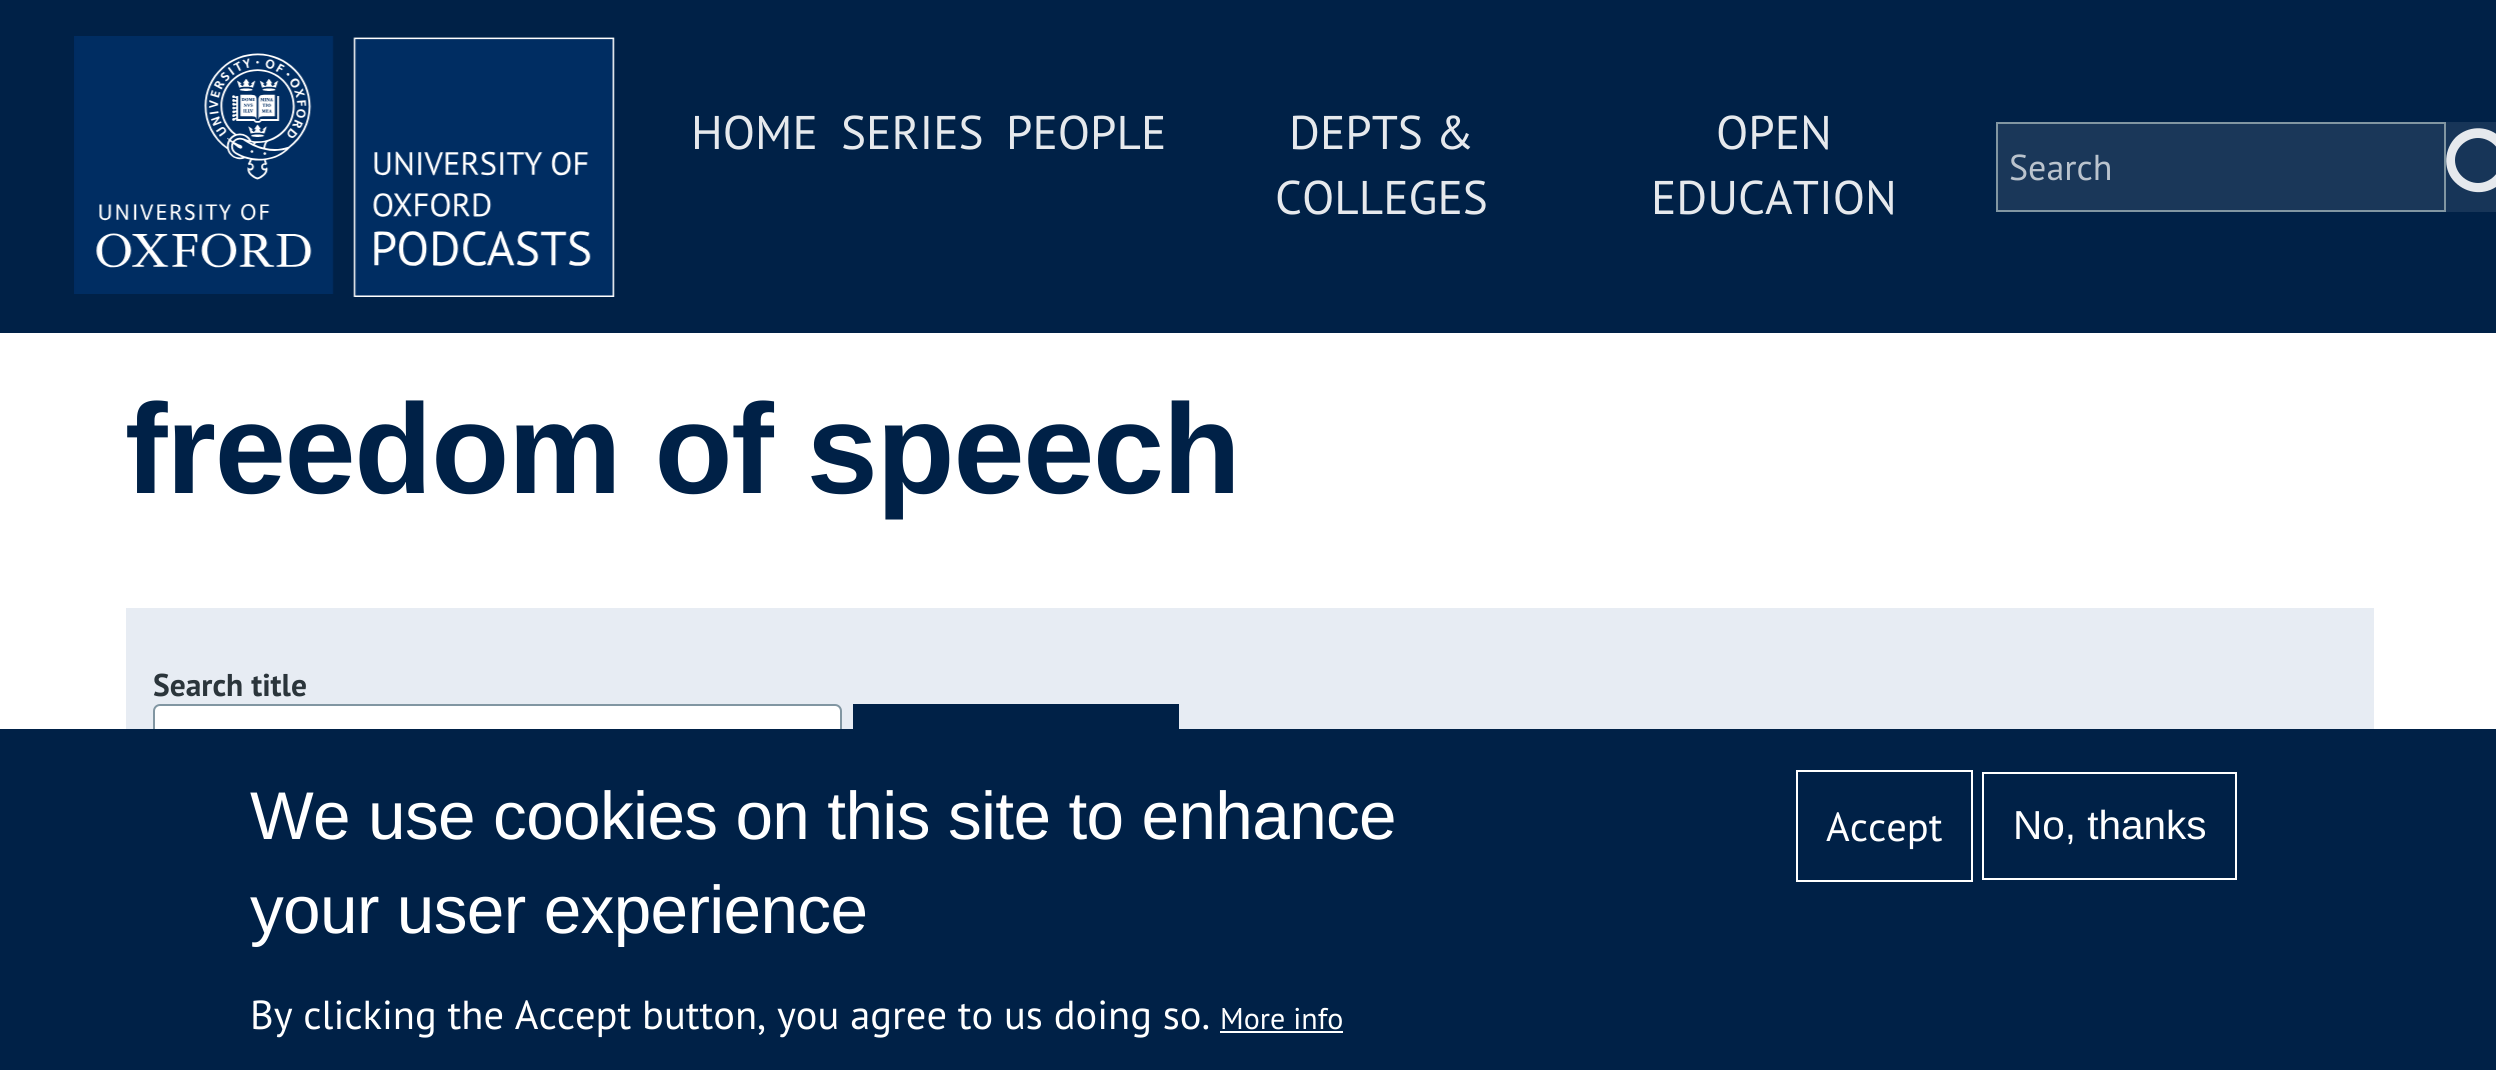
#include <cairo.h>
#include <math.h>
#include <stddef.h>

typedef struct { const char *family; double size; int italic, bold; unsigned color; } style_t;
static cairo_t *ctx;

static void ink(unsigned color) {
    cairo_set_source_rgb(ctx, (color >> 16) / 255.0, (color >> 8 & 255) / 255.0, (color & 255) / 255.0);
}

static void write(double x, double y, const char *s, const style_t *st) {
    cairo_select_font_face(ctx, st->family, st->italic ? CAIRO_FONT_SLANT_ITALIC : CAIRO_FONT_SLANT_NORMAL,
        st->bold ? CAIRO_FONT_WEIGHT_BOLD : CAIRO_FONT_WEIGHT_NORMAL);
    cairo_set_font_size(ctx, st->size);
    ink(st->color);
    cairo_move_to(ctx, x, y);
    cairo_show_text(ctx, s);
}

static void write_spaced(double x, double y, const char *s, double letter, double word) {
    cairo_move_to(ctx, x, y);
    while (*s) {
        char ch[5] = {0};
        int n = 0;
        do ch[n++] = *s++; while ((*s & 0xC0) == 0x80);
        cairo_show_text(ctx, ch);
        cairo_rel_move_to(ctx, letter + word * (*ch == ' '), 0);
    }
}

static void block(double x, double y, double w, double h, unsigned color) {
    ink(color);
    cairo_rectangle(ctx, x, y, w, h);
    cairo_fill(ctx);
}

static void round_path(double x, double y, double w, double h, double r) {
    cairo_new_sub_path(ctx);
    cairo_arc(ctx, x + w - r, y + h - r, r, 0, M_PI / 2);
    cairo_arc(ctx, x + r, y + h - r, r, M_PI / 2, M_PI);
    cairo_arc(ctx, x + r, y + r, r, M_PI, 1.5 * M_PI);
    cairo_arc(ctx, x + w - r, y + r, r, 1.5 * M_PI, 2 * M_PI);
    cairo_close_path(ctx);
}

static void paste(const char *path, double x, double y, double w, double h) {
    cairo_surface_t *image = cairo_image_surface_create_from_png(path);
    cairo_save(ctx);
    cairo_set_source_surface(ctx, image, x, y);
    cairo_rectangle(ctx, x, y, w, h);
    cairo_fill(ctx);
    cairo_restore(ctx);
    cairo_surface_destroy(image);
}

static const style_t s1 = {"PT Sans", 47.25, 0, 0, 0xe6e9ed};
static const style_t s2 = {"PT Sans", 36, 0, 0, 0xbac3cd};
static const style_t s3 = {"PT Sans", 31.5, 0, 1, 0x2b353b};
static const style_t s4 = {"PT Sans", 40.5, 0, 0, 0xffffff};
static const style_t s5 = {"PT Sans", 30, 0, 0, 0xffffff};
static const style_t s6 = {"Liberation Sans", 40.5, 0, 0, 0xffffff};

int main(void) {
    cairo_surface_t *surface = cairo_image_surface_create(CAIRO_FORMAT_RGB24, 2496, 1070);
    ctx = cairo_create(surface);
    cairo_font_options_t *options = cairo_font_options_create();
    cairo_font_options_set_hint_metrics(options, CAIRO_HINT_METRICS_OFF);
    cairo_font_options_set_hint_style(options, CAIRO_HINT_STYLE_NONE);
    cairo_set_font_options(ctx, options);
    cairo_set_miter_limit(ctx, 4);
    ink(0xffffff);
    cairo_paint(ctx);
    block(0, 0, 2496, 333, 0x002147);
    paste("pic1.png", 74, 36, 541, 261);
    write(691, 149, "HOME", &s1);
    write(841, 149, "SERIES", &s1);
    write(1006, 149, "PEOPLE", &s1);
    write(1289, 149, "DEPTS &", &s1);
    write(1275, 214, "COLLEGES", &s1);
    write(1716, 149, "OPEN", &s1);
    write(1651, 214, "EDUCATION", &s1);
    ink(0x1a3759);
    cairo_rectangle(ctx, 1997, 123, 448, 88);
    cairo_fill_preserve(ctx);
    ink(0x8196a2);
    cairo_stroke(ctx);
    write(2009, 180, "Search", &s2);
    block(2446, 122, 50, 90, 0x173558);
    ink(0xe6e9ed);
    cairo_new_path(ctx);
    cairo_move_to(ctx, 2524, 199);
    cairo_line_to(ctx, 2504, 179);
    cairo_curve_to(ctx, 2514, 166, 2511, 147, 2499, 136);
    cairo_curve_to(ctx, 2486, 125, 2468, 126, 2456, 137);
    cairo_curve_to(ctx, 2444, 149, 2443, 168, 2453, 180);
    cairo_curve_to(ctx, 2464, 193, 2482, 196, 2496, 187);
    cairo_line_to(ctx, 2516, 207);
    cairo_close_path(ctx);
    cairo_move_to(ctx, 2455, 160);
    cairo_curve_to(ctx, 2455, 148, 2466, 138, 2478, 138);
    cairo_curve_to(ctx, 2490, 138, 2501, 148, 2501, 160);
    cairo_curve_to(ctx, 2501, 173, 2490, 183, 2478, 183);
    cairo_curve_to(ctx, 2466, 183, 2455, 173, 2455, 160);
    cairo_close_path(ctx);
    cairo_fill(ctx);
    cairo_select_font_face(ctx, "Liberation Sans", CAIRO_FONT_SLANT_NORMAL, CAIRO_FONT_WEIGHT_BOLD);
    cairo_set_font_size(ctx, 127.75);
    ink(0x002147);
    write_spaced(125, 493, "freedom of speech", -1.25, 0);
    block(126, 608, 2248, 121, 0xe7ecf3);
    write(153, 696, "Search title", &s3);
    ink(0xffffff);
    round_path(154, 705, 687, 120, 6);
    cairo_fill_preserve(ctx);
    ink(0x8196a2);
    cairo_stroke(ctx);
    block(853, 704, 326, 25, 0x002147);
    block(0, 729, 2496, 341, 0x002147);
    cairo_select_font_face(ctx, "Liberation Sans", CAIRO_FONT_SLANT_NORMAL, CAIRO_FONT_WEIGHT_NORMAL);
    cairo_set_font_size(ctx, 67.5);
    ink(0xffffff);
    write_spaced(250, 839, "We use cookies on this site to enhance", -0.65, 0);
    write_spaced(250, 933, "your user experience", -0.65, 0);
    write(250, 1029, "By clicking the Accept button, you agree to us doing so.", &s4);
    write(1220, 1029, "More info", &s5);
    block(1220, 1031, 123, 2, 0xffffff);
    cairo_rectangle(ctx, 1797, 771, 175, 110);
    cairo_stroke(ctx);
    write(1826, 841, "Accept", &s4);
    cairo_rectangle(ctx, 1983, 773, 253, 106);
    cairo_stroke(ctx);
    write(2013, 839, "No, thanks", &s6);
    cairo_surface_write_to_png(surface, "screenshot.png");
    cairo_font_options_destroy(options);
    cairo_destroy(ctx);
    cairo_surface_destroy(surface);
    return 0;
}
